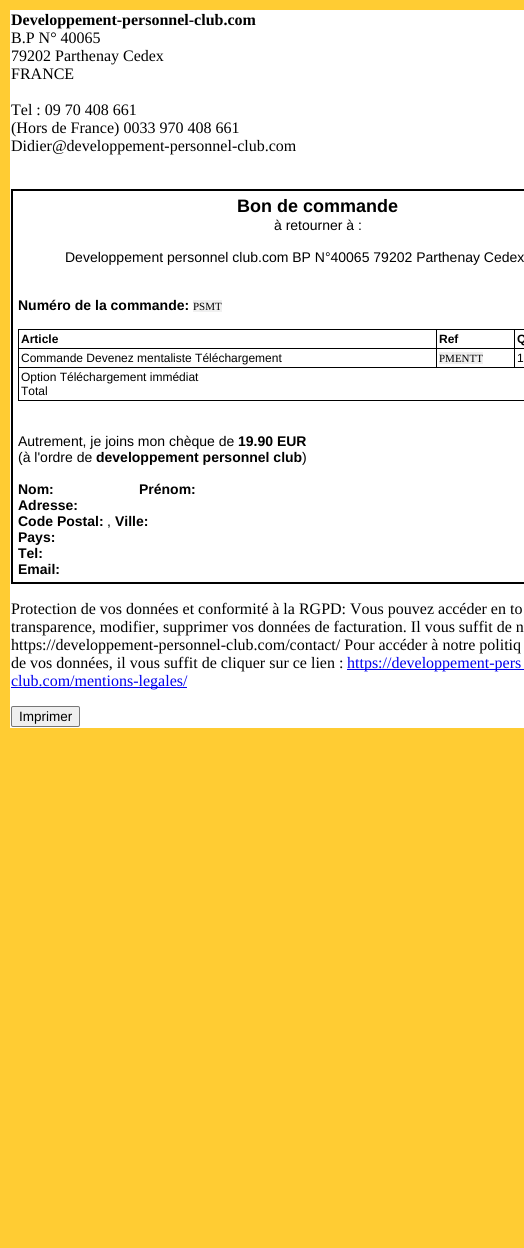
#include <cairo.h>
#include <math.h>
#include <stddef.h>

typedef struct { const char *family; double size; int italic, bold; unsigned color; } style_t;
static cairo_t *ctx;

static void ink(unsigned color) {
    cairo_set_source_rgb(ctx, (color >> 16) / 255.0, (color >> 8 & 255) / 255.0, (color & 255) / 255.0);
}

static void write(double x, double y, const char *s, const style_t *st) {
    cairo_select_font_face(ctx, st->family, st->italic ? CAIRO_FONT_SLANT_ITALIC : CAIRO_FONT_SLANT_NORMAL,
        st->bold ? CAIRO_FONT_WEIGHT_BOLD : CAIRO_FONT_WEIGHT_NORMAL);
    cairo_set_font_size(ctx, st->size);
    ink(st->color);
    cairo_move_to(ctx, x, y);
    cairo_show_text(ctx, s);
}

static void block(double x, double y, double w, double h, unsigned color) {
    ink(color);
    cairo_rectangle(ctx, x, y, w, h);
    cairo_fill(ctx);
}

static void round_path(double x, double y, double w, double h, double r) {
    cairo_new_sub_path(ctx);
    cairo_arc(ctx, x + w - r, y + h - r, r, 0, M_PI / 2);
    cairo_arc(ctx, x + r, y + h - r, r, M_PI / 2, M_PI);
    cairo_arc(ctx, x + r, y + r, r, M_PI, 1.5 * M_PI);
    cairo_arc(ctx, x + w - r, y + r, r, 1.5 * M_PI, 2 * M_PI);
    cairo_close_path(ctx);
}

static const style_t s1 = {"Liberation Serif", 16, 0, 1, 0x000000};
static const style_t s2 = {"Liberation Serif", 16, 0, 0, 0x000000};
static const style_t s3 = {"Liberation Sans", 18, 0, 1, 0x000000};
static const style_t s4 = {"Liberation Sans", 14, 0, 0, 0x000000};
static const style_t s5 = {"Liberation Sans", 14, 0, 1, 0x000000};
static const style_t s6 = {"Liberation Serif", 11, 0, 0, 0x000000};
static const style_t s7 = {"Liberation Sans", 12, 0, 1, 0x000000};
static const style_t s8 = {"Liberation Sans", 12, 0, 0, 0x000000};
static const style_t s9 = {"Liberation Serif", 16, 0, 0, 0x0000ee};
static const style_t s10 = {"Liberation Sans", 13.5, 0, 0, 0x000000};

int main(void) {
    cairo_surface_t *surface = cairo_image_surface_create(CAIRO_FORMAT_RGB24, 524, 1248);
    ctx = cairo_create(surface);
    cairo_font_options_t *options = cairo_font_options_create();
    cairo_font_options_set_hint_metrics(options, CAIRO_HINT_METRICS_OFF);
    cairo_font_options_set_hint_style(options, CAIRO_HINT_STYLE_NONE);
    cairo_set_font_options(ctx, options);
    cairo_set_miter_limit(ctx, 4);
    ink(0xffcc33);
    cairo_paint(ctx);
    block(10, 10, 514, 718, 0xffffff);
    write(11, 25, "Developpement-personnel-club.com", &s1);
    write(11, 43, "B.P N° 40065", &s2);
    write(11, 61, "79202 Parthenay Cedex", &s2);
    write(11, 79, "FRANCE", &s2);
    write(11, 115, "Tel : 09 70 408 661", &s2);
    write(11, 133, "(Hors de France) 0033 970 408 661", &s2);
    write(11, 151, "Didier@developpement-personnel-club.com", &s2);
    cairo_rectangle(ctx, 12, 190, 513, 393);
    cairo_stroke(ctx);
    write(237, 212, "Bon de commande", &s3);
    write(274, 230, "à retourner à :", &s4);
    write(65, 262, "Developpement personnel club.com BP N°40065 79202 Parthenay Cedex", &s4);
    write(18, 310, "Numéro de la commande:", &s5);
    block(193, 300, 29, 12, 0xf0f0f0);
    write(193, 310, "PSMT", &s6);
    block(18, 329, 506, 1, 0x000000);
    block(18, 329, 1, 72, 0x000000);
    block(436, 330, 1, 38, 0x000000);
    block(19, 348, 418, 1, 0x000000);
    write(21, 343, "Article", &s7);
    block(514, 330, 1, 38, 0x000000);
    block(437, 348, 87, 1, 0x000000);
    write(439, 343, "Ref", &s7);
    write(517, 343, "Q", &s7);
    block(19, 367, 505, 1, 0x000000);
    write(21, 362, "Commande Devenez mentaliste Téléchargement", &s8);
    block(439, 352, 44, 12, 0xf0f0f0);
    write(439, 362, "PMENTT", &s6);
    write(517, 362, "1", &s8);
    block(19, 400, 505, 1, 0x000000);
    write(21, 381, "Option Téléchargement immédiat", &s8);
    write(21, 395, "Total", &s8);
    write(18, 446, "Autrement, je joins mon chèque de", &s4);
    write(238, 446, "19.90 EUR", &s5);
    write(18, 462, "(à l'ordre de", &s4);
    write(96, 462, "developpement personnel club", &s5);
    write(302, 462, ")", &s4);
    write(18, 494, "Nom:", &s5);
    write(139, 494, "Prénom:", &s5);
    write(18, 510, "Adresse:", &s5);
    write(18, 526, "Code Postal:", &s5);
    write(107, 526, ",", &s4);
    write(115, 526, "Ville:", &s5);
    write(18, 542, "Pays:", &s5);
    write(18, 558, "Tel:", &s5);
    write(18, 574, "Email:", &s5);
    write(11, 614, "Protection de vos données et conformité à la RGPD: Vous pouvez accéder en to", &s2);
    write(11, 632, "transparence, modifier, supprimer vos données de facturation. Il vous suffit de n", &s2);
    write(11, 650, "https://developpement-personnel-club.com/contact/ Pour accéder à notre politiq", &s2);
    write(11, 668, "de vos données, il vous suffit de cliquer sur ce lien :", &s2);
    block(347, 669, 177, 1, 0x0000ee);
    write(347, 668, "https://developpement-pers", &s9);
    block(11, 687, 176, 1, 0x0000ee);
    write(11, 686, "club.com/mentions-legales/", &s9);
    ink(0xefefef);
    round_path(11.5, 706.5, 68, 20, 1.5);
    cairo_fill_preserve(ctx);
    ink(0x767676);
    cairo_set_line_width(ctx, 1);
    cairo_stroke(ctx);
    write(19, 721, "Imprimer", &s10);
    cairo_surface_write_to_png(surface, "screenshot.png");
    cairo_font_options_destroy(options);
    cairo_destroy(ctx);
    cairo_surface_destroy(surface);
    return 0;
}
